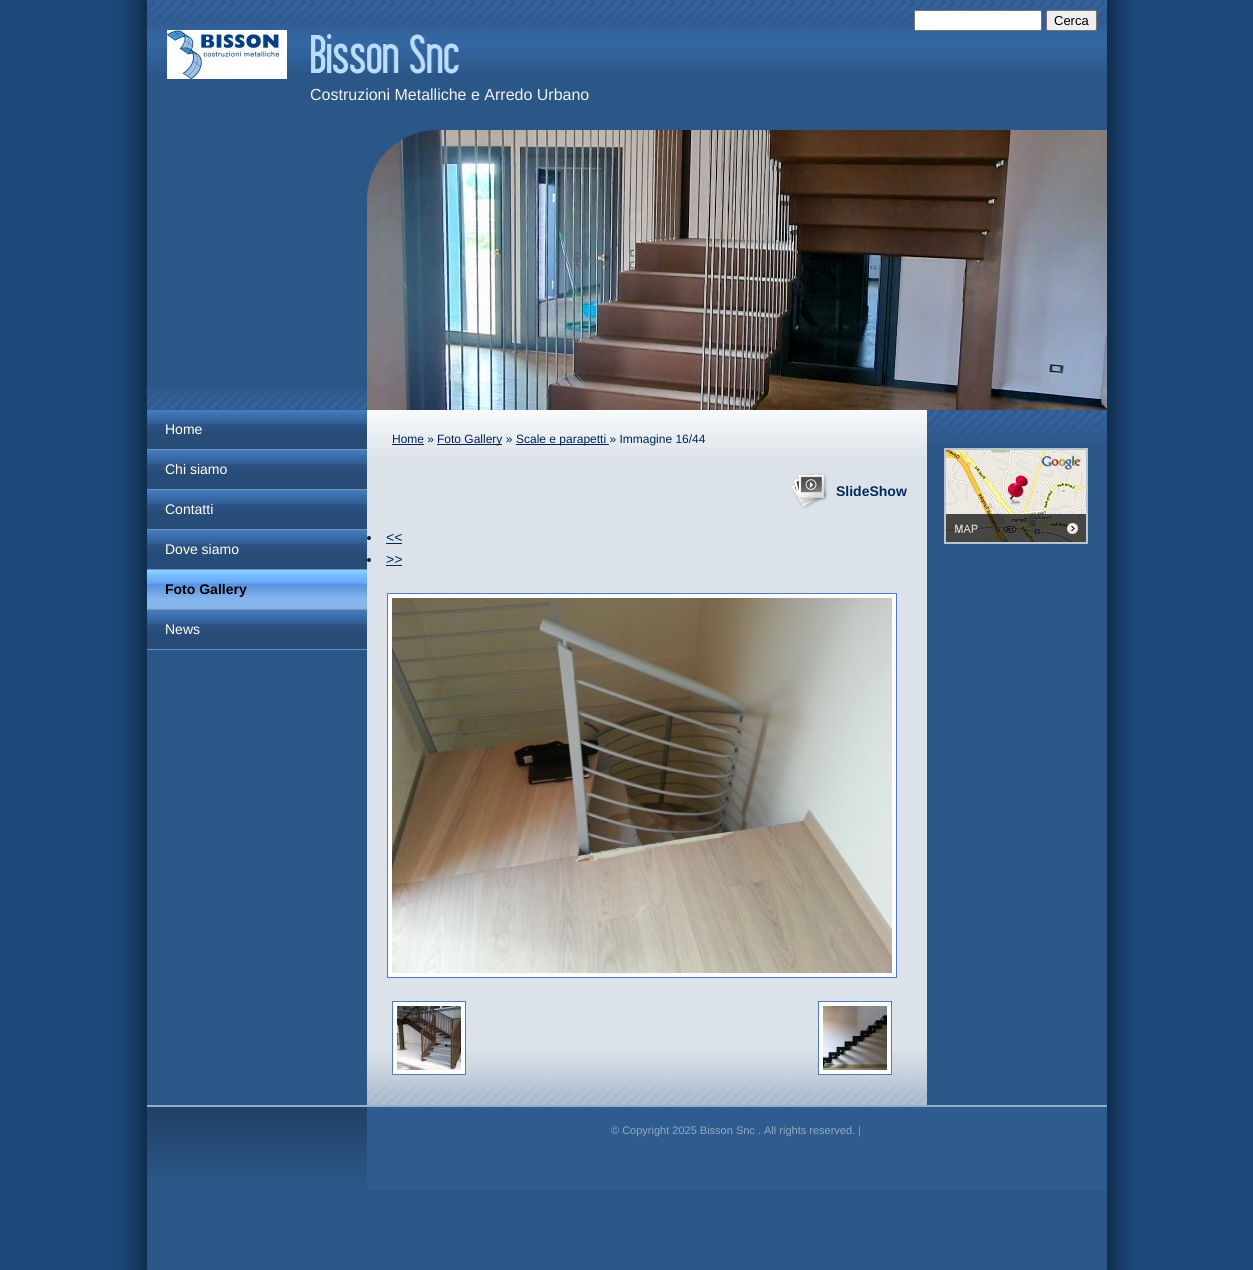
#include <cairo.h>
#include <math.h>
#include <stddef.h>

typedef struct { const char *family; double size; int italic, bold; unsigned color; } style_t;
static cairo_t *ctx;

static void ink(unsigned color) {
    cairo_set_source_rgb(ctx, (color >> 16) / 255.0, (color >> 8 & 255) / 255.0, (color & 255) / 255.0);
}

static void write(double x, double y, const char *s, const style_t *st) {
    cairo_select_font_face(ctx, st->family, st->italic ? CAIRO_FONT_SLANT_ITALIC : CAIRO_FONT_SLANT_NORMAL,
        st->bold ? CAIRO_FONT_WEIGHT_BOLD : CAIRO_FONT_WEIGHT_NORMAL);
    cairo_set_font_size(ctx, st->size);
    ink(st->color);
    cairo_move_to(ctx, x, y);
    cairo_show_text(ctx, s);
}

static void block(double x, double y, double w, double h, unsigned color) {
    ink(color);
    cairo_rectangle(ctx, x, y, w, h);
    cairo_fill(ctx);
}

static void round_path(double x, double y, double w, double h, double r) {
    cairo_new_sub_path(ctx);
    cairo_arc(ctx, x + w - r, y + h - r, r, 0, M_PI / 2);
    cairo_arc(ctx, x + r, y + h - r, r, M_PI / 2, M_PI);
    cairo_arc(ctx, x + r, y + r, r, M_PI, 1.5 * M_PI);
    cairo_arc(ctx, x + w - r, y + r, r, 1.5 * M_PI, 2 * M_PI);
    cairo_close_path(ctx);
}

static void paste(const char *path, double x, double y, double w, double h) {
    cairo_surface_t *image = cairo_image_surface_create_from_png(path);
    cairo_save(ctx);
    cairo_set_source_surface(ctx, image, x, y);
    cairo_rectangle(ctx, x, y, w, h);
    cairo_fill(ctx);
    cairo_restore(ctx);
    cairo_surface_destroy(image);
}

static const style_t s1 = {"Liberation Sans", 13, 0, 0, 0x000000};
static const style_t s2 = {"Liberation Sans", 16, 0, 0, 0xf1f1f1};
static const style_t s3 = {"Liberation Sans", 14, 0, 0, 0xffffff};
static const style_t s4 = {"Liberation Sans", 14, 0, 1, 0x000000};
static const style_t s5 = {"Liberation Sans", 12, 0, 0, 0x002455};
static const style_t s6 = {"Liberation Sans", 14, 0, 1, 0x002a5b};
static const style_t s7 = {"Liberation Sans", 14, 0, 0, 0x002a5b};
static const style_t s8 = {"Liberation Sans", 11, 0, 0, 0x93a8bf};

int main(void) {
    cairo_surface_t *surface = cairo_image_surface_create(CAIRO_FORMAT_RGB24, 1253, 1270);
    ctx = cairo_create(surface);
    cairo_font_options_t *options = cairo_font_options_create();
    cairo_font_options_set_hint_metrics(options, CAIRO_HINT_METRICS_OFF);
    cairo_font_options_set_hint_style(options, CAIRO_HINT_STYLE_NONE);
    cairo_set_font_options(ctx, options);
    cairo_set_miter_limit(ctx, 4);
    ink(0x1d497a);
    cairo_paint(ctx);
    paste("pic1.png", 110, 0, 1034, 1270);
    paste("pic2.png", 147, 0, 960, 72);
    ink(0xffffff);
    round_path(914.5, 10.5, 127, 20, 1.5);
    cairo_fill_preserve(ctx);
    ink(0x767676);
    cairo_set_line_width(ctx, 1);
    cairo_stroke(ctx);
    ink(0xefefef);
    round_path(1046.5, 10.5, 50, 20, 1.5);
    cairo_fill_preserve(ctx);
    ink(0x767676);
    cairo_stroke(ctx);
    write(1054, 25, "Cerca", &s1);
    paste("pic3.png", 147, 386, 220, 24);
    paste("pic4.png", 167, 30, 120, 49);
    paste("pic5.png", 311, 34, 149, 40);
    write(310, 100, "Costruzioni Metalliche e Arredo Urbano", &s2);
    paste("pic6.png", 367, 130, 740, 280);
    paste("pic7.png", 367, 130, 68, 67);
    block(367, 456, 560, 596, 0xdbe2e9);
    paste("pic8.png", 367, 1052, 560, 53);
    block(147, 431, 220, 18, 0x284c78);
    paste("pic9.png", 147, 410, 220, 21);
    block(147, 449, 220, 1, 0x6992c3);
    write(165, 434, "Home", &s3);
    block(147, 471, 220, 18, 0x284c78);
    paste("pic9.png", 147, 450, 220, 21);
    block(147, 489, 220, 1, 0x6992c3);
    write(165, 474, "Chi siamo", &s3);
    block(147, 511, 220, 18, 0x284c78);
    paste("pic9.png", 147, 490, 220, 21);
    block(147, 529, 220, 1, 0x6992c3);
    write(165, 514, "Contatti", &s3);
    block(147, 551, 220, 18, 0x284c78);
    paste("pic9.png", 147, 530, 220, 21);
    block(147, 569, 220, 1, 0x6992c3);
    write(165, 554, "Dove siamo", &s3);
    block(147, 609, 220, 1, 0x6992c3);
    block(147, 599, 220, 10, 0x87b6ed);
    paste("pic10.png", 147, 570, 220, 29);
    write(165, 594, "Foto Gallery", &s4);
    block(147, 631, 220, 18, 0x284c78);
    paste("pic9.png", 147, 610, 220, 21);
    block(147, 649, 220, 1, 0x6992c3);
    write(165, 634, "News", &s3);
    paste("pic11.png", 367, 410, 560, 46);
    write(392, 443, "Home »", &s5);
    block(392, 444, 32, 1, 0x002455);
    block(437, 444, 65, 1, 0x002455);
    write(437, 443, "Foto Gallery »", &s5);
    block(516, 444, 93, 1, 0x002455);
    write(516, 443, "Scale e parapetti » Immagine 16/44", &s5);
    paste("pic12.png", 791, 473, 37, 36);
    write(836, 496, "SlideShow", &s6);
    ink(0x002455);
    cairo_new_path(ctx);
    cairo_arc(ctx, 369, 538, 2, 0, 2 * M_PI);
    cairo_fill(ctx);
    write(386, 542, "<<", &s7);
    block(386, 543, 16, 1, 0x002a5b);
    ink(0x002455);
    cairo_new_path(ctx);
    cairo_arc(ctx, 369, 560, 2, 0, 2 * M_PI);
    cairo_fill(ctx);
    write(386, 564, ">>", &s7);
    block(386, 565, 16, 1, 0x002a5b);
    ink(0xffffff);
    cairo_rectangle(ctx, 387.5, 593.5, 509, 384);
    cairo_fill_preserve(ctx);
    ink(0x5579be);
    cairo_stroke(ctx);
    paste("pic13.png", 392, 598, 500, 375);
    ink(0xffffff);
    cairo_rectangle(ctx, 392.5, 1001.5, 73, 73);
    cairo_fill_preserve(ctx);
    ink(0x5579be);
    cairo_stroke(ctx);
    paste("pic14.png", 397, 1006, 64, 64);
    ink(0xffffff);
    cairo_rectangle(ctx, 818.5, 1001.5, 73, 73);
    cairo_fill_preserve(ctx);
    ink(0x5579be);
    cairo_stroke(ctx);
    paste("pic15.png", 823, 1006, 64, 64);
    paste("pic16.png", 927, 410, 180, 33);
    cairo_rectangle(ctx, 945, 449, 142, 94);
    ink(0xb7c5d3);
    cairo_set_line_width(ctx, 2);
    cairo_stroke(ctx);
    paste("pic17.png", 946, 450, 140, 92);
    paste("pic18.png", 147, 1105, 960, 71);
    block(367, 1107, 740, 83, 0x2e5c90);
    write(611, 1134, "© Copyright 2025 Bisson Snc . All rights reserved. |", &s8);
    cairo_surface_write_to_png(surface, "screenshot.png");
    cairo_font_options_destroy(options);
    cairo_destroy(ctx);
    cairo_surface_destroy(surface);
    return 0;
}
